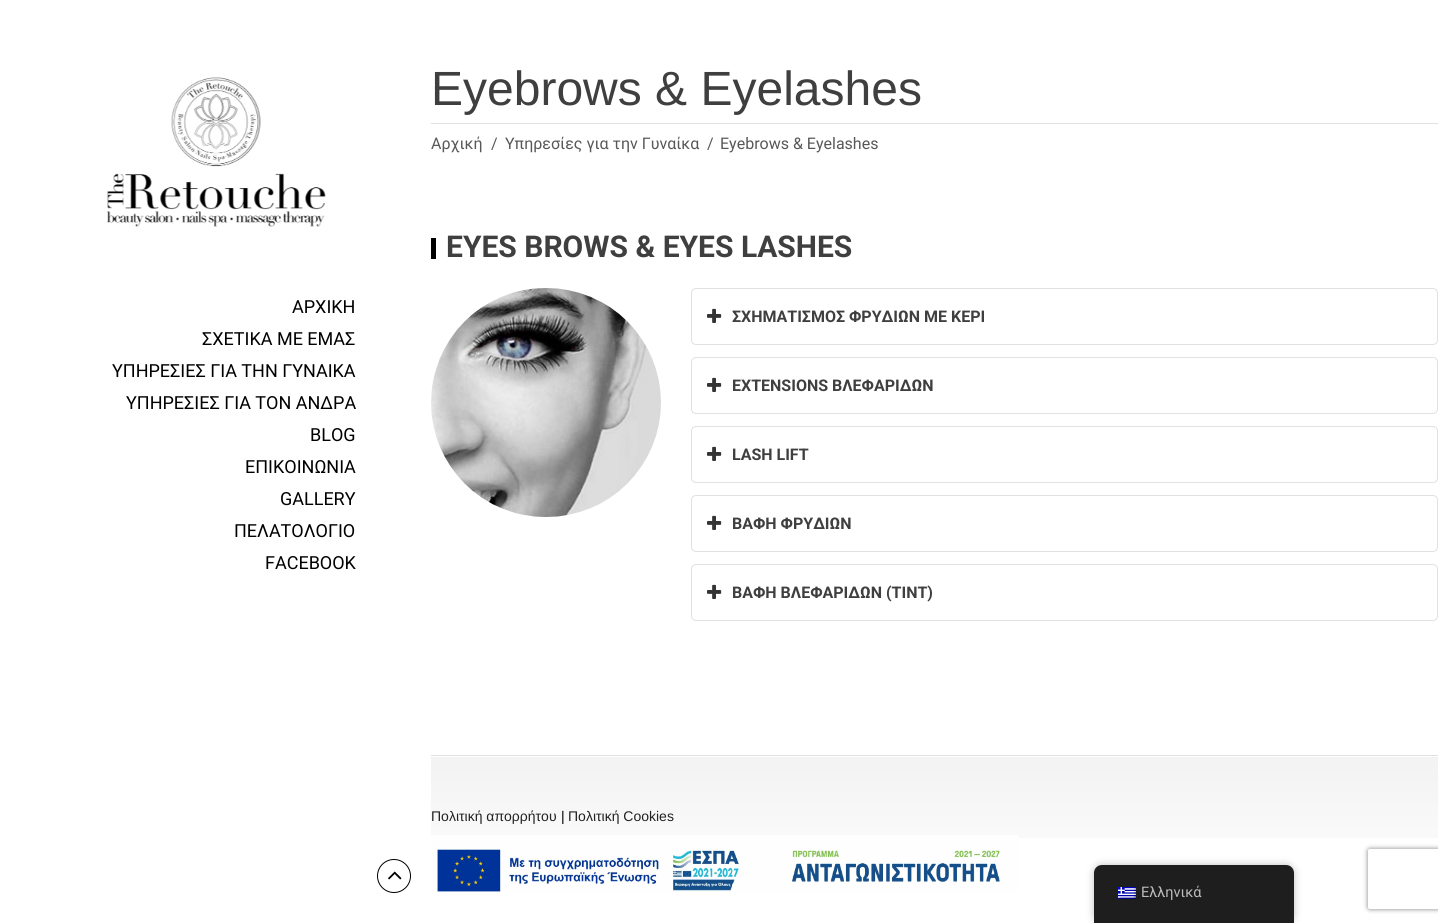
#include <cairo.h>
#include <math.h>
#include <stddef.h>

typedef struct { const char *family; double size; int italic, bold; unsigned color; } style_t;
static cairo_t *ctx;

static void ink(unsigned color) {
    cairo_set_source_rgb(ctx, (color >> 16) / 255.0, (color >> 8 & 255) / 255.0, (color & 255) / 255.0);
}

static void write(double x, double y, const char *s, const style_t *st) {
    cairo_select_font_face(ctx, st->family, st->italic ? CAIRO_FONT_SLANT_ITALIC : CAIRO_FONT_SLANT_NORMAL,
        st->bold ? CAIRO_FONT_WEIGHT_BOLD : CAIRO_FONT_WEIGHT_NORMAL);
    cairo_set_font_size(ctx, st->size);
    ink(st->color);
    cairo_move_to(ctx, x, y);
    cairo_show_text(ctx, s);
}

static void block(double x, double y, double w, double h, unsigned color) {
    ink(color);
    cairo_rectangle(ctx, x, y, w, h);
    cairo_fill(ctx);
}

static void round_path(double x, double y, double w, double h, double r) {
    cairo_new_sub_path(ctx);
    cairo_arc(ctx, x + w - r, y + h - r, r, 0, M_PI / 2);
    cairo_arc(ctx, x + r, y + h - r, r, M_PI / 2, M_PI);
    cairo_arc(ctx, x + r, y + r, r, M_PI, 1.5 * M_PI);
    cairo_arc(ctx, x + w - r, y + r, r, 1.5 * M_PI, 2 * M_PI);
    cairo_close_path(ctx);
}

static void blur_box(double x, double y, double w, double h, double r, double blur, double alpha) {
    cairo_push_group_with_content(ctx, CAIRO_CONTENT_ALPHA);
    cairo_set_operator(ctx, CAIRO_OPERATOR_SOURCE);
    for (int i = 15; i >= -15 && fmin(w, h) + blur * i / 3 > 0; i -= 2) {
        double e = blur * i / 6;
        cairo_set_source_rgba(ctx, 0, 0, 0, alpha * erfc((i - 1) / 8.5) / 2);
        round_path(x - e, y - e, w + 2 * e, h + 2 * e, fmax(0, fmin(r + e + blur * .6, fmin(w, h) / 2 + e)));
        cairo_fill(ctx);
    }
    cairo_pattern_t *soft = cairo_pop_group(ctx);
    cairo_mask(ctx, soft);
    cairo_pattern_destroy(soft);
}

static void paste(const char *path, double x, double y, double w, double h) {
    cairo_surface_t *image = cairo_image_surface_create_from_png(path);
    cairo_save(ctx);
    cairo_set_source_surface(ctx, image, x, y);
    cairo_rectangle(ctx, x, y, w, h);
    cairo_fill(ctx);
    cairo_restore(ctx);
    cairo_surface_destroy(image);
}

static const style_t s1 = {"Roboto", 18, 0, 0, 0x000000};
static const style_t s2 = {"Liberation Sans", 48, 0, 0, 0x3f3f3f};
static const style_t s3 = {"Roboto", 16, 0, 0, 0x585858};
static const style_t s4 = {"Roboto", 30, 0, 1, 0x3f3f3f};
static const style_t s5 = {"Roboto", 16, 0, 1, 0x3f3f3f};
static const style_t s6 = {"Liberation Sans", 14, 0, 0, 0x212121};
static const style_t s7 = {"Liberation Sans", 14, 0, 0, 0x000000};
static const style_t s8 = {"Roboto", 14.5, 0, 0, 0xbdbdbd};

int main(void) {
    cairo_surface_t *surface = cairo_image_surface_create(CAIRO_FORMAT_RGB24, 1438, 923);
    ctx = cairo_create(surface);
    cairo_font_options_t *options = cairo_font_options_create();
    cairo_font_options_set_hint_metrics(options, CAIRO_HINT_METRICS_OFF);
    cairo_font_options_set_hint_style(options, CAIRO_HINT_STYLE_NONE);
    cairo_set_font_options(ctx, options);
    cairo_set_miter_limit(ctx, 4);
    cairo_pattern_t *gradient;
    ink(0xffffff);
    cairo_paint(ctx);
    paste("pic1.png", 106, 77, 220, 150);
    write(292, 313, "ΑΡΧΙΚΗ", &s1);
    write(202, 345, "ΣΧΕΤΙΚΑ ΜΕ ΕΜΑΣ", &s1);
    write(112, 377, "ΥΠΗΡΕΣΙΕΣ ΓΙΑ ΤΗΝ ΓΥΝΑΙΚΑ", &s1);
    write(126, 409, "ΥΠΗΡΕΣΙΕΣ ΓΙΑ ΤΟΝ ΑΝΔΡΑ", &s1);
    write(310, 441, "BLOG", &s1);
    write(245, 473, "ΕΠΙΚΟΙΝΩΝΙΑ", &s1);
    write(280, 505, "GALLERY", &s1);
    write(234, 537, "ΠΕΛΑΤΟΛΟΓΙΟ", &s1);
    write(265, 569, "FACEBOOK", &s1);
    cairo_new_path(ctx);
    cairo_arc(ctx, 394, 876, 16.5, 0, 2 * M_PI);
    cairo_set_line_width(ctx, 1);
    cairo_stroke(ctx);
    paste("pic2.png", 388, 871, 14, 9);
    block(431, 123, 1007, 1, 0xe1e1e1);
    write(431, 105, "Eyebrows & Eyelashes", &s2);
    write(431, 149, "Αρχική", &s3);
    write(491, 149, "/", &s3);
    write(505, 149, "Υπηρεσίες για την Γυναίκα", &s3);
    write(707, 149, "/", &s3);
    write(720, 149, "Eyebrows & Eyelashes", &s3);
    block(431, 238, 5, 21, 0x000000);
    write(446, 257, "EYES BROWS & EYES LASHES", &s4);
    paste("pic3.png", 431, 288, 230, 229);
    round_path(691.5, 288.5, 746, 56, 4.5);
    ink(0xe1e1e1);
    cairo_stroke(ctx);
    paste("pic4.png", 707, 308, 15, 15);
    write(732, 322, "ΣΧΗΜΑΤΙΣΜΟΣ ΦΡΥΔΙΩΝ ΜΕ ΚΕΡΙ", &s5);
    round_path(691.5, 357.5, 746, 56, 4.5);
    ink(0xe1e1e1);
    cairo_stroke(ctx);
    paste("pic4.png", 707, 377, 15, 15);
    write(732, 391, "EXTENSIONS ΒΛΕΦΑΡΙΔΩΝ", &s5);
    round_path(691.5, 426.5, 746, 56, 4.5);
    ink(0xe1e1e1);
    cairo_stroke(ctx);
    paste("pic4.png", 707, 446, 15, 15);
    write(732, 460, "LASH LIFT", &s5);
    round_path(691.5, 495.5, 746, 56, 4.5);
    ink(0xe1e1e1);
    cairo_stroke(ctx);
    paste("pic4.png", 707, 515, 15, 15);
    write(732, 529, "ΒΑΦΗ ΦΡΥΔΙΩΝ", &s5);
    round_path(691.5, 564.5, 746, 56, 4.5);
    ink(0xe1e1e1);
    cairo_stroke(ctx);
    paste("pic4.png", 707, 584, 15, 15);
    write(732, 598, "ΒΑΦΗ ΒΛΕΦΑΡΙΔΩΝ (TINT)", &s5);
    gradient = cairo_pattern_create_linear(935, 756, 935, 900);
    cairo_pattern_add_color_stop_rgba(gradient, 0, 0, 0, 0, 0.05);
    cairo_pattern_add_color_stop_rgba(gradient, 1, 0, 0, 0, 0);
    cairo_set_source(ctx, gradient);
    cairo_pattern_destroy(gradient);
    cairo_rectangle(ctx, 431, 757, 1007, 81);
    cairo_fill(ctx);
    block(431, 755, 1007, 1, 0xe1e1e1);
    write(431, 821, "Πολιτική απορρήτου", &s6);
    write(561, 821, "|", &s7);
    write(568, 821, "Πολιτική Cookies", &s6);
    paste("pic5.png", 431, 835, 588, 57);
    ink(0x000000);
    blur_box(1094, 865, 200, 58, 8, 4, 0.25);
    ink(0x1e1e1e);
    cairo_new_path(ctx);
    cairo_move_to(ctx, 1102, 865);
    cairo_line_to(ctx, 1286, 865);
    cairo_curve_to(ctx, 1290.5, 865, 1294, 868.5, 1294, 873);
    cairo_line_to(ctx, 1294, 923);
    cairo_line_to(ctx, 1094, 923);
    cairo_line_to(ctx, 1094, 873);
    cairo_curve_to(ctx, 1094, 868.5, 1097.5, 865, 1102, 865);
    cairo_close_path(ctx);
    cairo_fill(ctx);
    paste("pic6.png", 1118, 887, 18, 12);
    write(1141, 897, "Ελληνικά", &s8);
    cairo_save(ctx);
    cairo_set_fill_rule(ctx, CAIRO_FILL_RULE_EVEN_ODD);
    cairo_new_path(ctx);
    cairo_move_to(ctx, 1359, 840);
    cairo_line_to(ctx, 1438, 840);
    cairo_line_to(ctx, 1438, 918);
    cairo_line_to(ctx, 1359, 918);
    cairo_close_path(ctx);
    cairo_move_to(ctx, 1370, 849);
    cairo_line_to(ctx, 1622, 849);
    cairo_curve_to(ctx, 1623, 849, 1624, 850, 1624, 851);
    cairo_line_to(ctx, 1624, 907);
    cairo_curve_to(ctx, 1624, 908, 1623, 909, 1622, 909);
    cairo_line_to(ctx, 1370, 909);
    cairo_curve_to(ctx, 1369, 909, 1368, 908, 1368, 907);
    cairo_line_to(ctx, 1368, 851);
    cairo_curve_to(ctx, 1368, 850, 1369, 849, 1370, 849);
    cairo_close_path(ctx);
    cairo_clip(ctx);
    ink(0x808080);
    blur_box(1368, 849, 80, 60, 2, 2.5, 1);
    cairo_restore(ctx);
    cairo_surface_write_to_png(surface, "screenshot.png");
    cairo_font_options_destroy(options);
    cairo_destroy(ctx);
    cairo_surface_destroy(surface);
    return 0;
}
